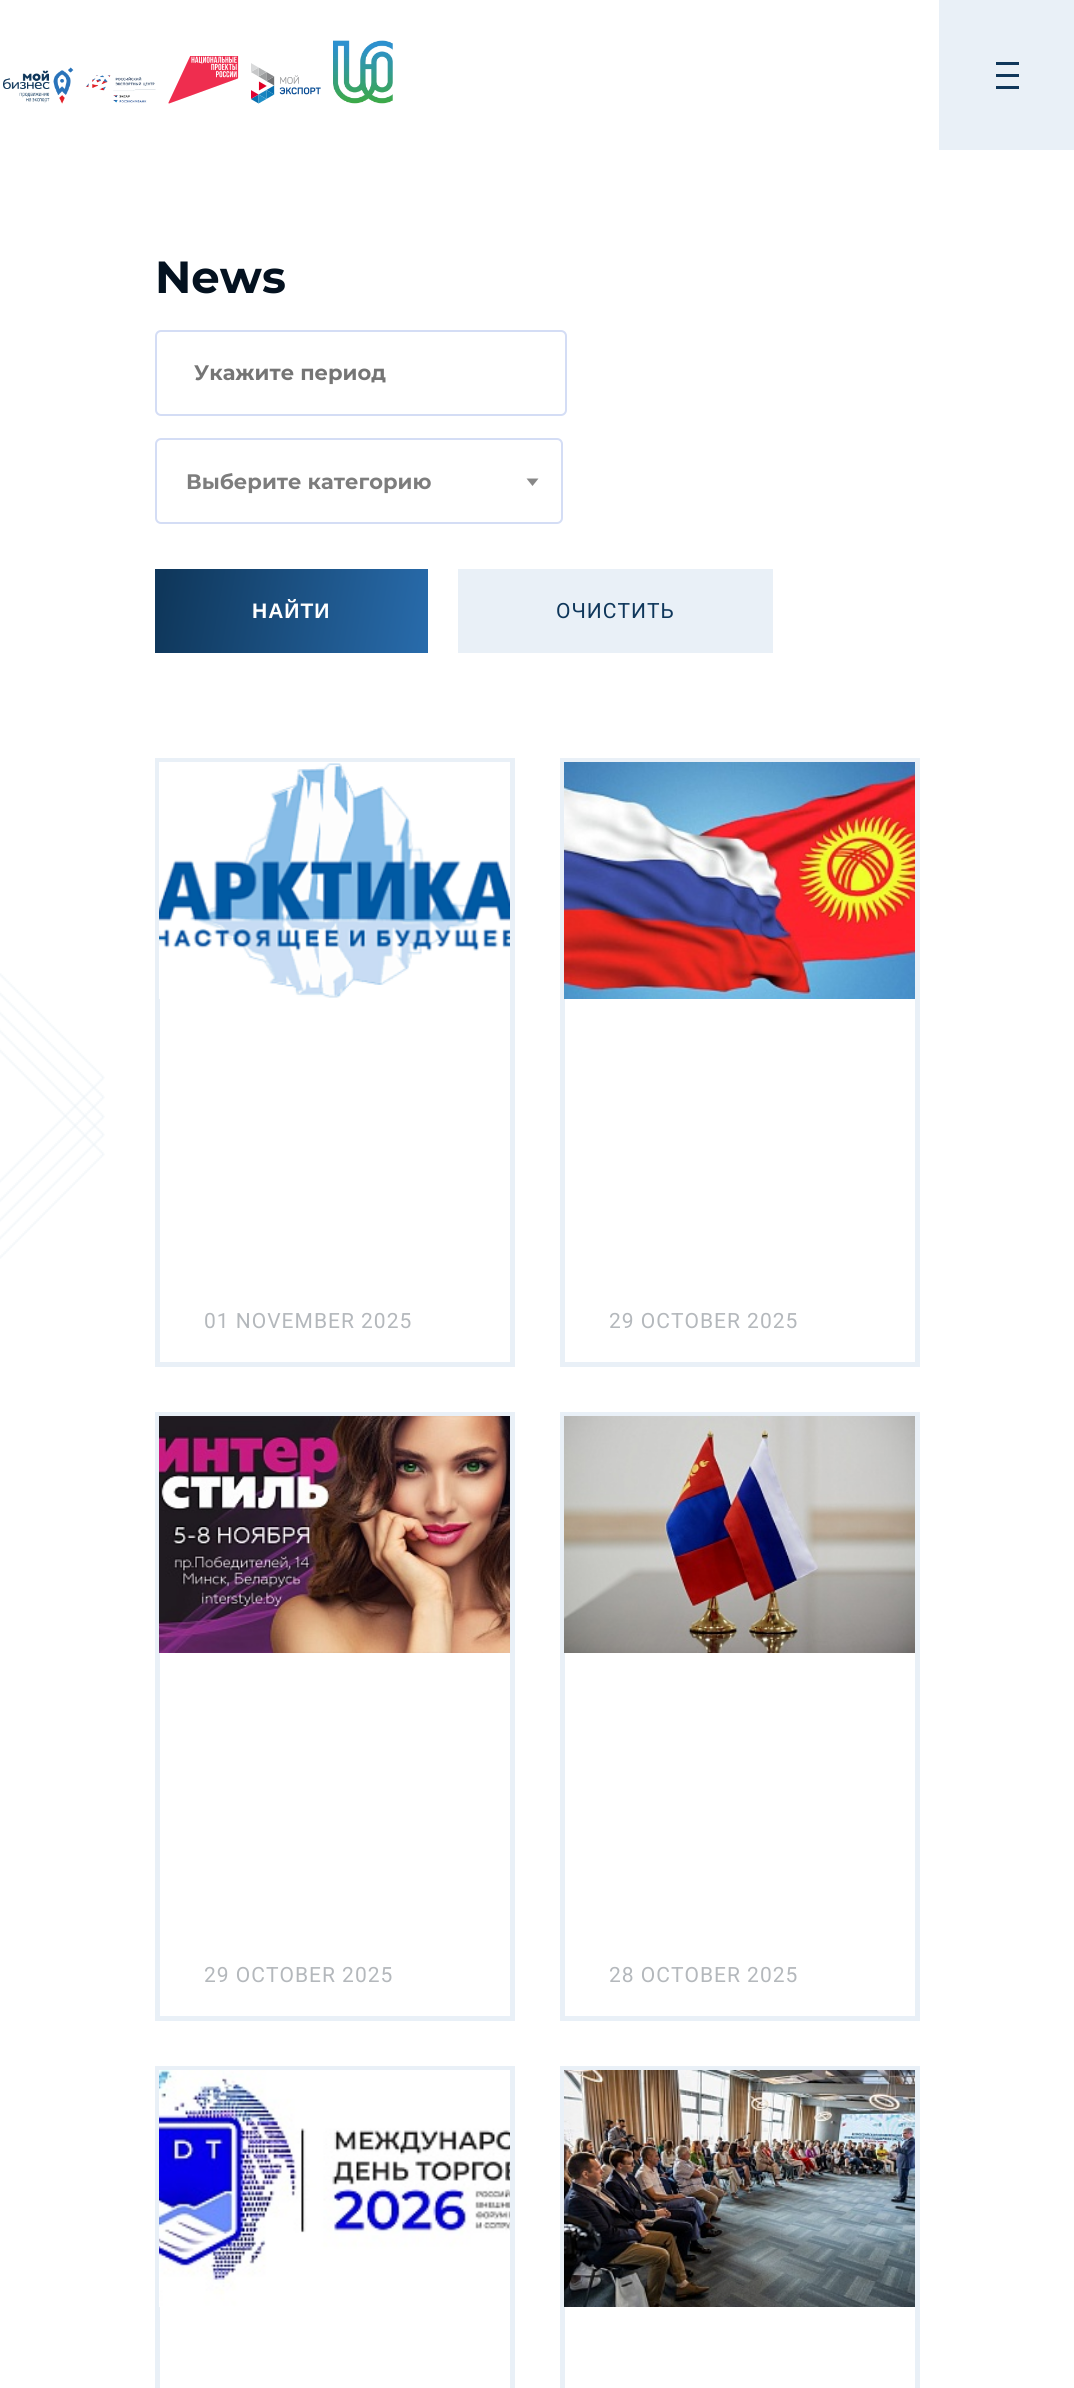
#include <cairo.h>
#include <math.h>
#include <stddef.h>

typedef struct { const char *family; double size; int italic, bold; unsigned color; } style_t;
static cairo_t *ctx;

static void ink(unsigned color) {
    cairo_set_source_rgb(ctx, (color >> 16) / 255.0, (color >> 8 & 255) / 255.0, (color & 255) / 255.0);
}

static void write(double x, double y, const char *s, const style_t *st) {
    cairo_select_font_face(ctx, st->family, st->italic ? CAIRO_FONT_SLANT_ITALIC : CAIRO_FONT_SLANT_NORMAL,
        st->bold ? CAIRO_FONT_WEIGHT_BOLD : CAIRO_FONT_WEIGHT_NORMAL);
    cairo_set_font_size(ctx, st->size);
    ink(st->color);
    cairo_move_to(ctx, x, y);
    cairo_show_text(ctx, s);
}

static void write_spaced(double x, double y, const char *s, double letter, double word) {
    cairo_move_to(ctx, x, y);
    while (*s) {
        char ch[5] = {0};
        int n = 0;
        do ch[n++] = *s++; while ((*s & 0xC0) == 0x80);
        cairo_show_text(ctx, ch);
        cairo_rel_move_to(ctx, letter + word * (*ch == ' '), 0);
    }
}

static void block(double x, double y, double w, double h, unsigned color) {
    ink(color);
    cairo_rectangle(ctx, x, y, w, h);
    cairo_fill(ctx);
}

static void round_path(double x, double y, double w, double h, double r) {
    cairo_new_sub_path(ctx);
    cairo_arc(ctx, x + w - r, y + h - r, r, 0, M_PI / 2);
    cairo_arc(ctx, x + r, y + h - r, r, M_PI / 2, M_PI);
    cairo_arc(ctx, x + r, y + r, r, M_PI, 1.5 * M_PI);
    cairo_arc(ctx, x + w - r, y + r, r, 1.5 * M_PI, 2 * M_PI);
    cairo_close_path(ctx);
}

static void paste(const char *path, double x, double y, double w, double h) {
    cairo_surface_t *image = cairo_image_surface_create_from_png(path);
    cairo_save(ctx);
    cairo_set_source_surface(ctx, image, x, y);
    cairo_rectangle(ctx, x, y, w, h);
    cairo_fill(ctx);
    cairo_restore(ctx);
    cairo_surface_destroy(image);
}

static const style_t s1 = {"Montserrat", 45, 0, 1, 0x041220};
static const style_t s2 = {"Montserrat", 21, 0, 1, 0x757575};
static const style_t s3 = {"Montserrat", 21, 0, 1, 0x7d7d7d};

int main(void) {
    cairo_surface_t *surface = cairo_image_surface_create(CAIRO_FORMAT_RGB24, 1074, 2388);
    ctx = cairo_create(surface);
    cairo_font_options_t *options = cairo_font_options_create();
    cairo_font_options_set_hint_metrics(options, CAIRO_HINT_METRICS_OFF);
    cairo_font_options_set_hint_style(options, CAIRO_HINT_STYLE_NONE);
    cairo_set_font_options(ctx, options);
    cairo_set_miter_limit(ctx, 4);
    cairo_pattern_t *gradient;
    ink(0xffffff);
    cairo_paint(ctx);
    paste("pic1.png", 3, 67, 71, 37);
    paste("pic2.png", 85, 75, 71, 28);
    paste("pic3.png", 168, 56, 71, 48);
    paste("pic4.png", 251, 63, 70, 41);
    paste("pic5.png", 333, 40, 60, 64);
    block(939, 0, 135, 150, 0xe9f0f7);
    block(996, 62, 23, 3, 0x0f375b);
    block(996, 74, 23, 3, 0x0f375b);
    block(996, 86, 23, 3, 0x0f375b);
    paste("pic6.png", 0, 973, 105, 286);
    write(155, 293, "News", &s1);
    round_path(156, 331, 410, 84, 5);
    ink(0xd4ddf5);
    cairo_stroke(ctx);
    write(194, 380, "Укажите период", &s2);
    round_path(156, 439, 406, 84, 5);
    ink(0xd4ddf5);
    cairo_stroke(ctx);
    write(186, 489, "Выберите категорию", &s3);
    ink(0x888888);
    cairo_new_path(ctx);
    cairo_move_to(ctx, 526.5, 478.5);
    cairo_line_to(ctx, 538.5, 478.5);
    cairo_line_to(ctx, 532.5, 486);
    cairo_close_path(ctx);
    cairo_fill(ctx);
    gradient = cairo_pattern_create_linear(151, 585, 431, 636);
    cairo_pattern_add_color_stop_rgba(gradient, 0.04, 0.059, 0.216, 0.357, 1);
    cairo_pattern_add_color_stop_rgba(gradient, 0.99, 0.157, 0.42, 0.671, 1);
    cairo_set_source(ctx, gradient);
    cairo_pattern_destroy(gradient);
    cairo_rectangle(ctx, 155, 569, 273, 84);
    cairo_fill(ctx);
    cairo_select_font_face(ctx, "Liberation Sans", CAIRO_FONT_SLANT_NORMAL, CAIRO_FONT_WEIGHT_BOLD);
    ink(0xffffff);
    write_spaced(252, 618, "НАЙТИ", 1, 0);
    block(458, 569, 315, 84, 0xe9f0f7);
    cairo_select_font_face(ctx, "Roboto", CAIRO_FONT_SLANT_NORMAL, CAIRO_FONT_WEIGHT_NORMAL);
    ink(0x0f375b);
    write_spaced(556, 618, "ОЧИСТИТЬ", 1, 0);
    cairo_rectangle(ctx, 157.5, 760.5, 355, 604);
    ink(0xe9f0f7);
    cairo_set_line_width(ctx, 5);
    cairo_stroke(ctx);
    paste("pic7.png", 159, 762, 351, 237);
    ink(0xb4b8bc);
    write_spaced(204, 1328, "01 NOVEMBER 2025", 1, 0);
    cairo_rectangle(ctx, 562.5, 760.5, 355, 604);
    ink(0xe9f0f7);
    cairo_stroke(ctx);
    paste("pic8.png", 564, 762, 351, 237);
    ink(0xb4b8bc);
    write_spaced(609, 1328, "29 OCTOBER 2025", 1, 0);
    cairo_rectangle(ctx, 157.5, 1414.5, 355, 604);
    ink(0xe9f0f7);
    cairo_stroke(ctx);
    paste("pic9.png", 159, 1416, 351, 237);
    ink(0xb4b8bc);
    write_spaced(204, 1982, "29 OCTOBER 2025", 1, 0);
    cairo_rectangle(ctx, 562.5, 1414.5, 355, 604);
    ink(0xe9f0f7);
    cairo_stroke(ctx);
    paste("pic10.png", 564, 1416, 351, 237);
    ink(0xb4b8bc);
    write_spaced(609, 1982, "28 OCTOBER 2025", 1, 0);
    cairo_rectangle(ctx, 157.5, 2068.5, 355, 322);
    ink(0xe9f0f7);
    cairo_stroke(ctx);
    paste("pic11.png", 159, 2070, 351, 237);
    cairo_rectangle(ctx, 562.5, 2068.5, 355, 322);
    cairo_stroke(ctx);
    paste("pic12.png", 564, 2070, 351, 237);
    cairo_surface_write_to_png(surface, "screenshot.png");
    cairo_font_options_destroy(options);
    cairo_destroy(ctx);
    cairo_surface_destroy(surface);
    return 0;
}
